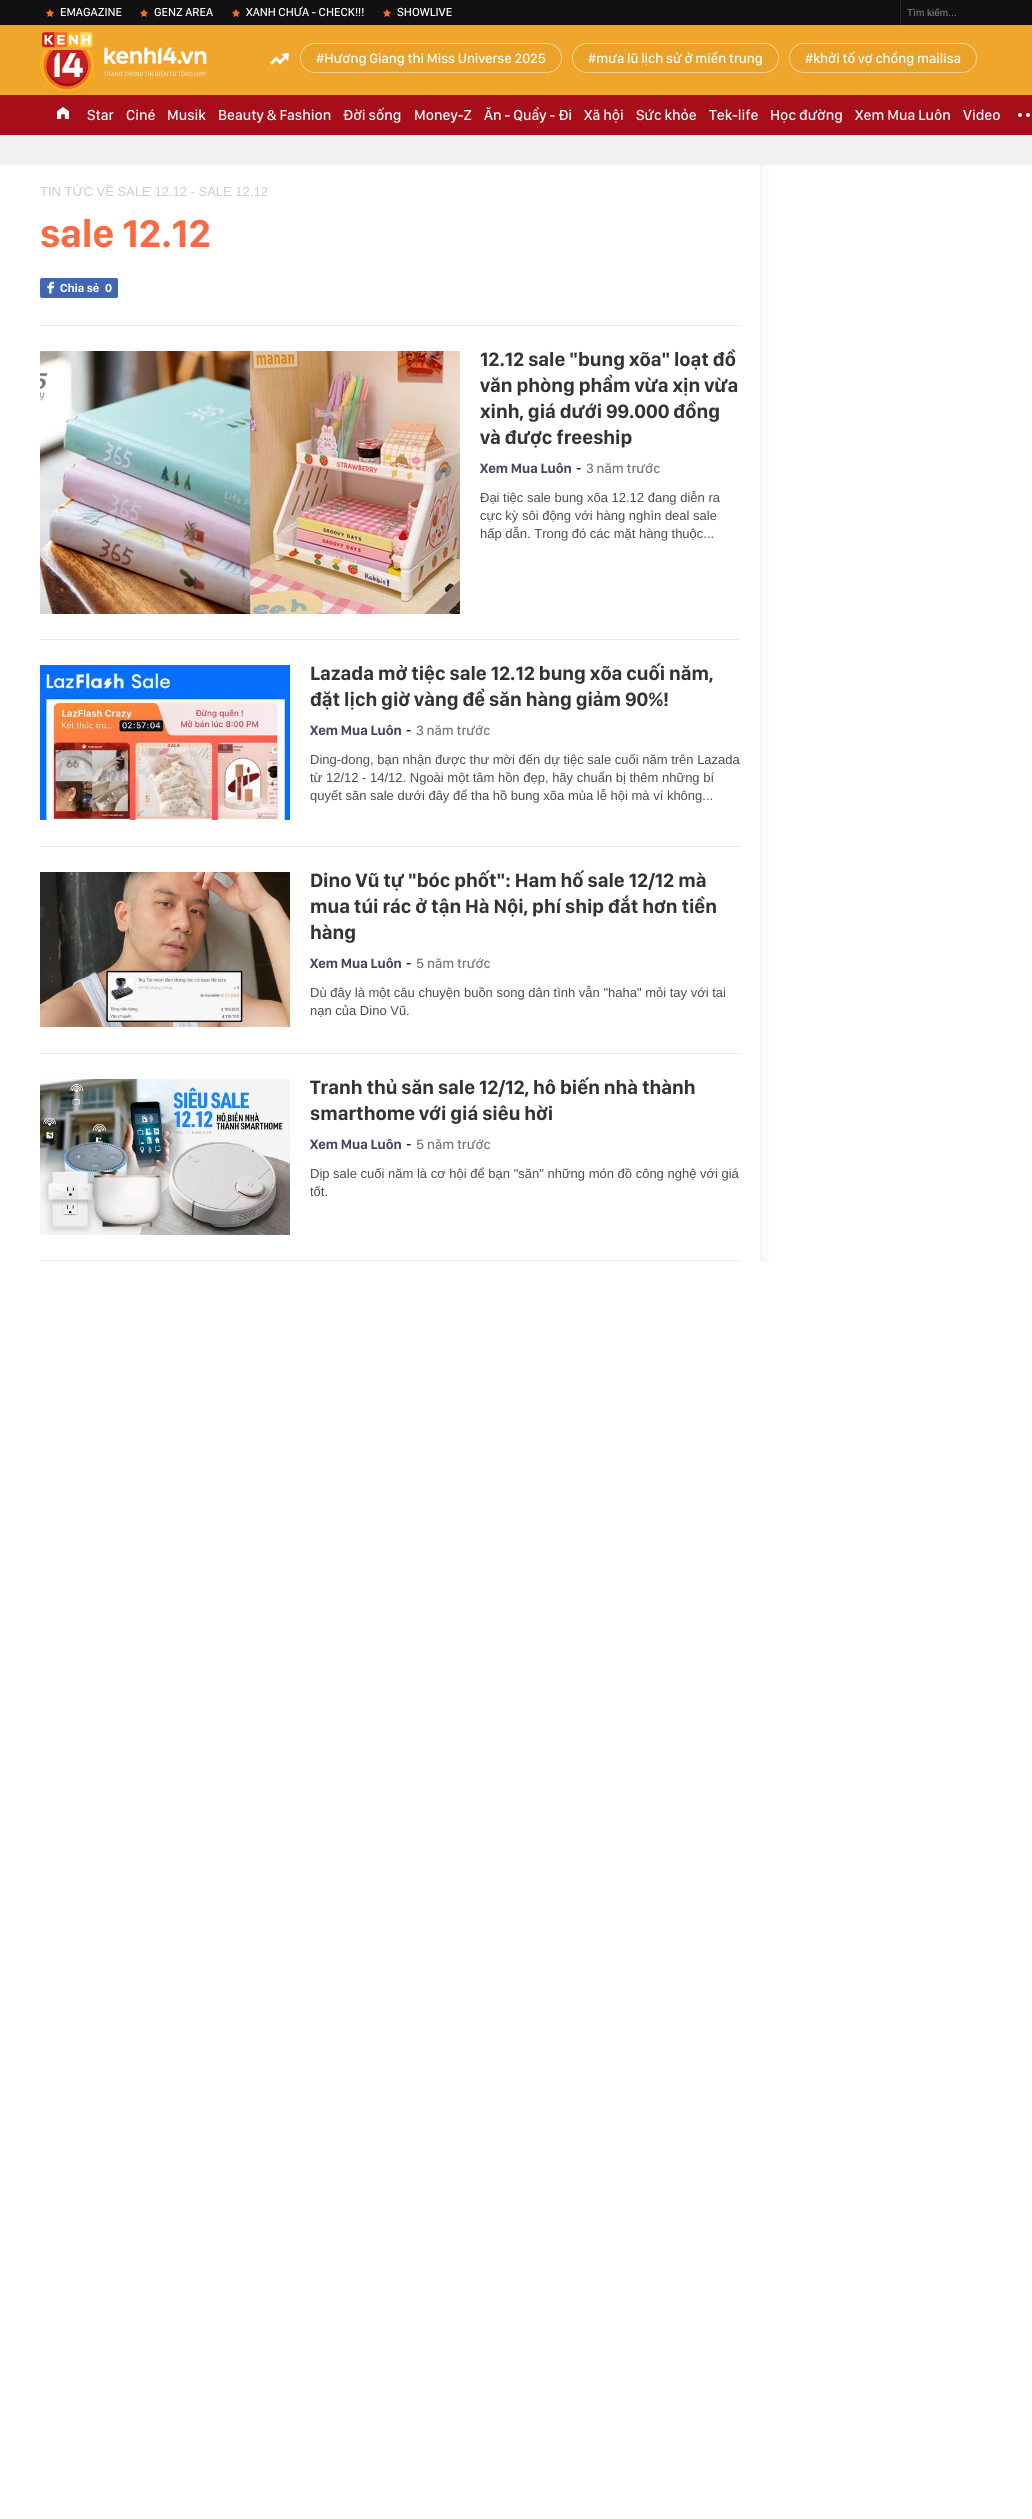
#include <cairo.h>
#include <math.h>
#include <stddef.h>

typedef struct { const char *family; double size; int italic, bold; unsigned color; } style_t;
static cairo_t *ctx;

static void ink(unsigned color) {
    cairo_set_source_rgb(ctx, (color >> 16) / 255.0, (color >> 8 & 255) / 255.0, (color & 255) / 255.0);
}

static void write(double x, double y, const char *s, const style_t *st) {
    cairo_select_font_face(ctx, st->family, st->italic ? CAIRO_FONT_SLANT_ITALIC : CAIRO_FONT_SLANT_NORMAL,
        st->bold ? CAIRO_FONT_WEIGHT_BOLD : CAIRO_FONT_WEIGHT_NORMAL);
    cairo_set_font_size(ctx, st->size);
    ink(st->color);
    cairo_move_to(ctx, x, y);
    cairo_show_text(ctx, s);
}

static void block(double x, double y, double w, double h, unsigned color) {
    ink(color);
    cairo_rectangle(ctx, x, y, w, h);
    cairo_fill(ctx);
}

static void round_path(double x, double y, double w, double h, double r) {
    cairo_new_sub_path(ctx);
    cairo_arc(ctx, x + w - r, y + h - r, r, 0, M_PI / 2);
    cairo_arc(ctx, x + r, y + h - r, r, M_PI / 2, M_PI);
    cairo_arc(ctx, x + r, y + r, r, M_PI, 1.5 * M_PI);
    cairo_arc(ctx, x + w - r, y + r, r, 1.5 * M_PI, 2 * M_PI);
    cairo_close_path(ctx);
}

static void paste(const char *path, double x, double y, double w, double h) {
    cairo_surface_t *image = cairo_image_surface_create_from_png(path);
    cairo_save(ctx);
    cairo_set_source_surface(ctx, image, x, y);
    cairo_rectangle(ctx, x, y, w, h);
    cairo_fill(ctx);
    cairo_restore(ctx);
    cairo_surface_destroy(image);
}

static const style_t s1 = {"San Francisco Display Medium", 12, 0, 0, 0xffffff};
static const style_t s2 = {"Liberation Sans", 10, 0, 0, 0x8a8a8a};
static const style_t s3 = {"San Francisco Display Medium", 14, 0, 0, 0xffffff};
static const style_t s4 = {"San Francisco Display Medium", 15, 0, 0, 0xffffff};
static const style_t s5 = {"Liberation Sans", 13, 0, 0, 0xcccccc};
static const style_t s6 = {"San Francisco Display", 40, 0, 1, 0xfb6942};
static const style_t s7 = {"San Francisco Display", 12, 0, 1, 0xffffff};
static const style_t s8 = {"San Francisco Display", 20, 0, 1, 0x333333};
static const style_t s9 = {"San Francisco Display", 14, 0, 1, 0x41455e};
static const style_t s10 = {"Liberation Sans", 16, 0, 0, 0x000000};
static const style_t s11 = {"San Francisco Display Medium", 14, 0, 0, 0x777777};
static const style_t s12 = {"Liberation Sans", 13, 0, 0, 0x4d4d4d};

int main(void) {
    cairo_surface_t *surface = cairo_image_surface_create(CAIRO_FORMAT_RGB24, 1032, 2519);
    ctx = cairo_create(surface);
    cairo_font_options_t *options = cairo_font_options_create();
    cairo_font_options_set_hint_metrics(options, CAIRO_HINT_METRICS_OFF);
    cairo_font_options_set_hint_style(options, CAIRO_HINT_STYLE_NONE);
    cairo_set_font_options(ctx, options);
    cairo_set_miter_limit(ctx, 4);
    ink(0xffffff);
    cairo_paint(ctx);
    block(0, 0, 1032, 25, 0x111111);
    paste("pic1.png", 46, 9, 8, 8);
    write(60, 16, "EMAGAZINE", &s1);
    paste("pic1.png", 140, 9, 8, 8);
    write(154, 16, "GENZ AREA", &s1);
    paste("pic1.png", 232, 9, 8, 8);
    write(246, 16, "XANH CHƯA - CHECK!!!", &s1);
    paste("pic1.png", 383, 9, 8, 8);
    write(397, 16, "SHOWLIVE", &s1);
    block(900, 0, 1, 25, 0x292929);
    write(907, 16, "Tìm kiếm...", &s2);
    block(0, 25, 1032, 70, 0xf0a52b);
    paste("pic2.png", 40, 32, 167, 60);
    paste("pic3.png", 270, 53, 19, 12);
    ink(0xeba22a);
    round_path(300.5, 43.5, 261, 29, 14.5);
    cairo_fill_preserve(ctx);
    ink(0xf5d195);
    cairo_set_line_width(ctx, 1);
    cairo_stroke(ctx);
    write(316, 63, "#Hương Giang thi Miss Universe 2025", &s3);
    ink(0xeba22a);
    round_path(572.5, 43.5, 206, 29, 14.5);
    cairo_fill_preserve(ctx);
    ink(0xf5d195);
    cairo_stroke(ctx);
    write(588, 63, "#mưa lũ lịch sử ở miền trung", &s3);
    ink(0xeba22a);
    round_path(789.5, 43.5, 187, 29, 14.5);
    cairo_fill_preserve(ctx);
    ink(0xf5d195);
    cairo_stroke(ctx);
    write(805, 63, "#khởi tố vợ chồng mailisa", &s3);
    block(0, 95, 1032, 40, 0xa70e1a);
    paste("pic4.png", 57, 107, 12, 12);
    write(87, 120, "Star", &s4);
    write(126, 120, "Ciné", &s4);
    write(167, 120, "Musik", &s4);
    write(218, 120, "Beauty & Fashion", &s4);
    write(343, 120, "Đời sống", &s4);
    write(414, 120, "Money-Z", &s4);
    write(484, 120, "Ăn - Quẩy - Đi", &s4);
    write(584, 120, "Xã hội", &s4);
    write(636, 120, "Sức khỏe", &s4);
    write(709, 120, "Tek-life", &s4);
    write(770, 120, "Học đường", &s4);
    write(855, 120, "Xem Mua Luôn", &s4);
    write(963, 120, "Video", &s4);
    cairo_new_path(ctx);
    cairo_arc(ctx, 1020, 115, 2, 0, 2 * M_PI);
    cairo_fill(ctx);
    cairo_arc(ctx, 1028, 115, 2, 0, 2 * M_PI);
    cairo_fill(ctx);
    block(0, 135, 1032, 30, 0xf1f1f1);
    block(40, 325, 700, 1, 0xebebeb);
    write(40, 196, "TIN TỨC VỀ SALE 12.12 - SALE 12.12", &s5);
    write(40, 247, "sale 12.12", &s6);
    ink(0x4167b2);
    round_path(40, 278, 78, 20, 2);
    cairo_fill(ctx);
    paste("pic5.png", 47, 281, 7, 13);
    write(60, 292, "Chia sẻ", &s7);
    write(105, 292, "0", &s7);
    block(40, 639, 700, 1, 0xebebeb);
    paste("pic6.png", 40, 351, 420, 263);
    write(480, 366, "12.12 sale \"bung xõa\" loạt đồ", &s8);
    write(480, 392, "văn phòng phẩm vừa xịn vừa", &s8);
    write(480, 418, "xinh, giá dưới 99.000 đồng", &s8);
    write(480, 444, "và được freeship", &s8);
    write(480, 473, "Xem Mua Luôn", &s9);
    write(576, 473, "-", &s10);
    write(586, 473, "3 năm trước", &s11);
    write(480, 502, "Đại tiệc sale bung xõa 12.12 đang diễn ra", &s12);
    write(480, 520, "cực kỳ sôi động với hàng nghìn deal sale", &s12);
    write(480, 538, "hấp dẫn. Trong đó các mặt hàng thuộc...", &s12);
    block(40, 846, 700, 1, 0xebebeb);
    paste("pic7.png", 40, 665, 250, 155);
    write(310, 680, "Lazada mở tiệc sale 12.12 bung xõa cuối năm,", &s8);
    write(310, 706, "đặt lịch giờ vàng để săn hàng giảm 90%!", &s8);
    write(310, 735, "Xem Mua Luôn", &s9);
    write(406, 735, "-", &s10);
    write(416, 735, "3 năm trước", &s11);
    write(310, 764, "Ding-dong, bạn nhận được thư mời đến dự tiệc sale cuối năm trên Lazada", &s12);
    write(310, 782, "từ 12/12 - 14/12. Ngoài một tâm hồn đẹp, hãy chuẩn bị thêm những bí", &s12);
    write(310, 800, "quyết săn sale dưới đây để tha hồ bung xõa mùa lễ hội mà ví không...", &s12);
    block(40, 1053, 700, 1, 0xebebeb);
    paste("pic8.png", 40, 872, 250, 155);
    write(310, 887, "Dino Vũ tự \"bóc phốt\": Ham hố sale 12/12 mà", &s8);
    write(310, 913, "mua túi rác ở tận Hà Nội, phí ship đắt hơn tiền", &s8);
    write(310, 939, "hàng", &s8);
    write(310, 968, "Xem Mua Luôn", &s9);
    write(406, 968, "-", &s10);
    write(416, 968, "5 năm trước", &s11);
    write(310, 997, "Dù đây là một câu chuyện buồn song dân tình vẫn \"haha\" mỏi tay với tai", &s12);
    write(310, 1015, "nạn của Dino Vũ.", &s12);
    block(40, 1260, 700, 1, 0xebebeb);
    paste("pic9.png", 40, 1079, 250, 156);
    write(310, 1094, "Tranh thủ săn sale 12/12, hô biến nhà thành", &s8);
    write(310, 1120, "smarthome với giá siêu hời", &s8);
    write(310, 1149, "Xem Mua Luôn", &s9);
    write(406, 1149, "-", &s10);
    write(416, 1149, "5 năm trước", &s11);
    write(310, 1178, "Dịp sale cuối năm là cơ hội để bạn \"săn\" những món đồ công nghệ với giá", &s12);
    write(310, 1196, "tốt.", &s12);
    paste("pic10.png", 760, 165, 9, 1097);
    cairo_surface_write_to_png(surface, "screenshot.png");
    cairo_font_options_destroy(options);
    cairo_destroy(ctx);
    cairo_surface_destroy(surface);
    return 0;
}
